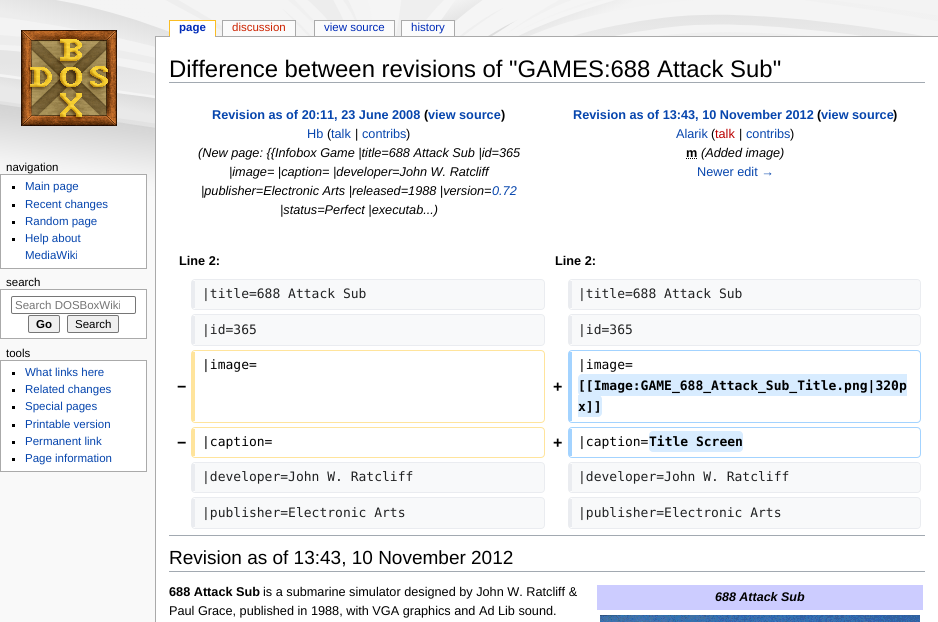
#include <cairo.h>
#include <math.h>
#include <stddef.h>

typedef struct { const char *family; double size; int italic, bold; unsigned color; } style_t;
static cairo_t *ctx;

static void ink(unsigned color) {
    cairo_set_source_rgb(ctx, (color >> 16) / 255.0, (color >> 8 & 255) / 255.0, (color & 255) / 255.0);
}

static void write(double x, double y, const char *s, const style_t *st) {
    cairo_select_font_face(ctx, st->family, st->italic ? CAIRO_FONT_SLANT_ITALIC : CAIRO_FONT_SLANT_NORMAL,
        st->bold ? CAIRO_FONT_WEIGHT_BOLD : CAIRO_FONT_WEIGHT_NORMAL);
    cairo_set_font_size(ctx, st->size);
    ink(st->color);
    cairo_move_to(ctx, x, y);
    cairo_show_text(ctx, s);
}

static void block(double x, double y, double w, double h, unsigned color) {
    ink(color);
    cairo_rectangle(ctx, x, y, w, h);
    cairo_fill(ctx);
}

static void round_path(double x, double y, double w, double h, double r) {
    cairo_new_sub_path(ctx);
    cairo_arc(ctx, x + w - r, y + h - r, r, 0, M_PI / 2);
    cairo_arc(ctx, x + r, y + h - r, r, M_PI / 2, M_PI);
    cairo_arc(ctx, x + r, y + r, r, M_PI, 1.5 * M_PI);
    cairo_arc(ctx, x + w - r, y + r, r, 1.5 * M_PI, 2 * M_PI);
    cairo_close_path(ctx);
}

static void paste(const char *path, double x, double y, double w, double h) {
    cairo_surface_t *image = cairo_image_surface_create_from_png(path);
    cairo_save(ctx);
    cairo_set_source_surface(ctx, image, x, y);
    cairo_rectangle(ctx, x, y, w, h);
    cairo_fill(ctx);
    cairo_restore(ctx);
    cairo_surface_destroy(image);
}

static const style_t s1 = {"Liberation Sans", 11.5, 0, 1, 0x002bb8};
static const style_t s2 = {"Liberation Sans", 11.5, 0, 0, 0xcc2200};
static const style_t s3 = {"Liberation Sans", 11.5, 0, 0, 0x002bb8};
static const style_t s4 = {"Liberation Sans", 11.5, 0, 0, 0x000000};
static const style_t s5 = {"Liberation Sans", 11.5, 0, 0, 0x0645ad};
static const style_t s6 = {"Liberation Sans", 11.5, 0, 0, 0x757575};
static const style_t s7 = {"Liberation Sans", 11.5, 0, 1, 0x000000};
static const style_t s8 = {"Liberation Sans", 23.9, 0, 0, 0x000000};
static const style_t s9 = {"Liberation Sans", 12.7, 0, 1, 0x0645ad};
static const style_t s10 = {"Liberation Sans", 12.7, 0, 1, 0x000000};
static const style_t s11 = {"Liberation Sans", 12.7, 0, 0, 0x0645ad};
static const style_t s12 = {"Liberation Sans", 12.7, 0, 0, 0x000000};
static const style_t s13 = {"Liberation Sans", 12.7, 1, 0, 0x000000};
static const style_t s14 = {"Liberation Sans", 12.7, 1, 0, 0x0645ad};
static const style_t s15 = {"Liberation Sans", 12.7, 0, 0, 0xba0000};
static const style_t s16 = {"DejaVu Sans Mono", 13, 0, 0, 0x202122};
static const style_t s17 = {"Liberation Sans", 16, 0, 1, 0x000000};
static const style_t s18 = {"DejaVu Sans Mono", 13, 0, 0, 0x000000};
static const style_t s19 = {"DejaVu Sans Mono", 13, 0, 1, 0x000000};
static const style_t s20 = {"Liberation Sans", 19, 0, 0, 0x000000};
static const style_t s21 = {"Liberation Sans", 12.5, 1, 1, 0x000000};

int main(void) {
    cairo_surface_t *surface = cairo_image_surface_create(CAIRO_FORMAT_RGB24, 938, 622);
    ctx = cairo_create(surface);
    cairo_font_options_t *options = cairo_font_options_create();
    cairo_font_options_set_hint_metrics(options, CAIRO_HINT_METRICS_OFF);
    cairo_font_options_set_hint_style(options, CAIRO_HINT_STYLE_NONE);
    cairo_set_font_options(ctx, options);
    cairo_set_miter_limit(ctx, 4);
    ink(0xf9f9f9);
    cairo_paint(ctx);
    paste("pic1.png", 0, 0, 938, 210);
    block(155, 36, 783, 1, 0xaaaaaa);
    block(170, 21, 45, 16, 0xffffff);
    write(179, 31, "page", &s1);
    block(169, 20, 47, 1, 0xfabd23);
    block(215, 20, 1, 16, 0xfabd23);
    block(169, 20, 1, 16, 0xfabd23);
    block(223, 21, 72, 15, 0xfbfbfb);
    write(232, 31, "discussion", &s2);
    block(222, 20, 74, 1, 0xaaaaaa);
    block(295, 20, 1, 16, 0xaaaaaa);
    block(222, 20, 1, 16, 0xaaaaaa);
    block(315, 21, 79, 15, 0xfbfbfb);
    write(324, 31, "view source", &s3);
    block(314, 20, 81, 1, 0xaaaaaa);
    block(394, 20, 1, 16, 0xaaaaaa);
    block(314, 20, 1, 16, 0xaaaaaa);
    block(402, 21, 52, 15, 0xfbfbfb);
    write(411, 31, "history", &s3);
    block(401, 20, 54, 1, 0xaaaaaa);
    block(454, 20, 1, 16, 0xaaaaaa);
    block(401, 20, 1, 16, 0xaaaaaa);
    paste("pic2.png", 21, 30, 96, 96);
    write(6, 171, "navigation", &s4);
    ink(0xffffff);
    cairo_rectangle(ctx, 0.5, 174.5, 146, 94);
    cairo_fill_preserve(ctx);
    ink(0xaaaaaa);
    cairo_set_line_width(ctx, 1);
    cairo_stroke(ctx);
    block(12, 186, 3, 3, 0x000000);
    write(25, 190, "Main page", &s5);
    block(12, 204, 3, 3, 0x000000);
    write(25, 208, "Recent changes", &s5);
    block(12, 221, 3, 3, 0x000000);
    write(25, 225, "Random page", &s5);
    block(12, 238, 3, 3, 0x000000);
    write(25, 242, "Help about", &s5);
    write(25, 259, "MediaWiki", &s5);
    write(6, 286, "search", &s4);
    ink(0xffffff);
    cairo_rectangle(ctx, 0.5, 289.5, 146, 49);
    cairo_fill_preserve(ctx);
    ink(0xaaaaaa);
    cairo_stroke(ctx);
    round_path(11.5, 296.5, 124, 17, 1.5);
    ink(0x767676);
    cairo_stroke(ctx);
    cairo_save(ctx);
    cairo_rectangle(ctx, 15, 299, 105, 12);
    cairo_clip(ctx);
    write(15, 309, "Search DOSBoxWiki", &s6);
    cairo_restore(ctx);
    ink(0xefefef);
    round_path(28.5, 315.5, 31, 17, 1.5);
    cairo_fill_preserve(ctx);
    ink(0x767676);
    cairo_stroke(ctx);
    write(36, 328, "Go", &s7);
    ink(0xefefef);
    round_path(67.5, 315.5, 51, 17, 1.5);
    cairo_fill_preserve(ctx);
    ink(0x767676);
    cairo_stroke(ctx);
    write(75, 328, "Search", &s4);
    write(6, 357, "tools", &s4);
    ink(0xffffff);
    cairo_rectangle(ctx, 0.5, 360.5, 146, 111);
    cairo_fill_preserve(ctx);
    ink(0xaaaaaa);
    cairo_stroke(ctx);
    block(12, 372, 3, 3, 0x000000);
    write(25, 376, "What links here", &s5);
    block(12, 389, 3, 3, 0x000000);
    write(25, 393, "Related changes", &s5);
    block(12, 406, 3, 3, 0x000000);
    write(25, 410, "Special pages", &s5);
    block(12, 424, 3, 3, 0x000000);
    write(25, 428, "Printable version", &s5);
    block(12, 441, 3, 3, 0x000000);
    write(25, 445, "Permanent link", &s5);
    block(12, 458, 3, 3, 0x000000);
    write(25, 462, "Page information", &s5);
    block(156, 37, 782, 585, 0xffffff);
    block(155, 36, 1, 586, 0xaaaaaa);
    block(169, 82, 756, 1, 0xa2a9b1);
    write(169, 77, "Difference between revisions of \"GAMES:688 Attack Sub\"", &s8);
    write(212, 119, "Revision as of 20:11, 23 June 2008", &s9);
    write(424, 119, "(", &s10);
    write(428, 119, "view source", &s9);
    write(501, 119, ")", &s10);
    write(307, 138, "Hb", &s11);
    write(327, 138, "(", &s12);
    write(331, 138, "talk", &s11);
    write(355, 138, "|", &s12);
    write(362, 138, "contribs", &s11);
    write(406, 138, ")", &s12);
    write(198, 157, "(New page: {{Infobox Game |title=688 Attack Sub |id=365", &s13);
    write(229, 176, "|image= |caption= |developer=John W. Ratcliff", &s13);
    write(201, 195, "|publisher=Electronic Arts |released=1988 |version=", &s13);
    write(492, 195, "0.72", &s14);
    write(280, 214, "|status=Perfect |executab...)", &s13);
    write(573, 119, "Revision as of 13:43, 10 November 2012", &s9);
    write(817, 119, "(", &s10);
    write(821, 119, "view source", &s9);
    write(893, 119, ")", &s10);
    write(676, 138, "Alarik", &s11);
    write(711, 138, "(", &s12);
    write(715, 138, "talk", &s15);
    write(739, 138, "|", &s12);
    write(746, 138, "contribs", &s11);
    write(790, 138, ")", &s12);
    write(686, 157, "m", &s10);
    cairo_new_path(ctx);
    cairo_move_to(ctx, 686, 158.5);
    cairo_line_to(ctx, 697.5, 158.5);
    cairo_set_dash(ctx, (double[]){1, 1}, 2, 0);
    cairo_stroke(ctx);
    write(701, 157, "(Added image)", &s13);
    write(697, 176, "Newer edit →", &s11);
    write(179, 265, "Line 2:", &s10);
    write(555, 265, "Line 2:", &s10);
    ink(0xf8f9fa);
    cairo_new_path(ctx);
    cairo_move_to(ctx, 195, 280);
    cairo_line_to(ctx, 541, 280);
    cairo_curve_to(ctx, 546, 280, 544, 288, 544, 291);
    cairo_line_to(ctx, 544, 298);
    cairo_curve_to(ctx, 544, 301, 546, 309, 541, 309);
    cairo_line_to(ctx, 195, 309);
    cairo_close_path(ctx);
    cairo_fill(ctx);
    round_path(191.5, 279.5, 353, 30, 3.5);
    ink(0xeaecf0);
    cairo_set_dash(ctx, NULL, 0, 0);
    cairo_stroke(ctx);
    block(192, 281, 3, 27, 0xeaecf0);
    write(202, 298, "|title=688 Attack Sub", &s16);
    ink(0xf8f9fa);
    cairo_new_path(ctx);
    cairo_move_to(ctx, 572, 280);
    cairo_line_to(ctx, 917, 280);
    cairo_curve_to(ctx, 921, 281, 920, 285, 920, 287);
    cairo_line_to(ctx, 920, 302);
    cairo_curve_to(ctx, 920, 304, 921, 309, 917, 309);
    cairo_line_to(ctx, 572, 309);
    cairo_close_path(ctx);
    cairo_fill(ctx);
    round_path(568.5, 279.5, 352, 30, 3.5);
    ink(0xeaecf0);
    cairo_stroke(ctx);
    block(569, 281, 3, 27, 0xeaecf0);
    write(578, 298, "|title=688 Attack Sub", &s16);
    ink(0xf8f9fa);
    cairo_new_path(ctx);
    cairo_move_to(ctx, 195, 315);
    cairo_line_to(ctx, 541, 315);
    cairo_curve_to(ctx, 543, 315, 544, 316, 544, 318);
    cairo_line_to(ctx, 544, 334);
    cairo_curve_to(ctx, 544, 337, 546, 345, 541, 345);
    cairo_line_to(ctx, 195, 345);
    cairo_close_path(ctx);
    cairo_fill(ctx);
    round_path(191.5, 314.5, 353, 31, 3.5);
    ink(0xeaecf0);
    cairo_stroke(ctx);
    block(192, 316, 3, 28, 0xeaecf0);
    write(202, 334, "|id=365", &s16);
    ink(0xf8f9fa);
    cairo_new_path(ctx);
    cairo_move_to(ctx, 572, 315);
    cairo_line_to(ctx, 917, 315);
    cairo_curve_to(ctx, 922, 315, 920, 323, 920, 326);
    cairo_line_to(ctx, 920, 338);
    cairo_curve_to(ctx, 920, 340, 921, 345, 917, 345);
    cairo_line_to(ctx, 572, 345);
    cairo_close_path(ctx);
    cairo_fill(ctx);
    round_path(568.5, 314.5, 352, 31, 3.5);
    ink(0xeaecf0);
    cairo_stroke(ctx);
    block(569, 316, 3, 28, 0xeaecf0);
    write(578, 334, "|id=365", &s16);
    write(177, 392, "−", &s17);
    round_path(191.5, 350.5, 353, 72, 3.5);
    ink(0xffe49c);
    cairo_stroke(ctx);
    block(192, 352, 3, 69, 0xffe49c);
    write(202, 369, "|image=", &s18);
    write(553, 392, "+", &s17);
    round_path(568.5, 350.5, 352, 72, 3.5);
    ink(0xa3d3ff);
    cairo_stroke(ctx);
    block(569, 352, 3, 69, 0xa3d3ff);
    write(578, 369, "|image=", &s18);
    ink(0xd8ecff);
    cairo_new_path(ctx);
    cairo_move_to(ctx, 582, 374);
    cairo_line_to(ctx, 907, 374);
    cairo_line_to(ctx, 907, 396);
    cairo_line_to(ctx, 582, 396);
    cairo_curve_to(ctx, 580, 396, 578, 394, 578, 392);
    cairo_line_to(ctx, 578, 378);
    cairo_curve_to(ctx, 578, 376, 580, 374, 582, 374);
    cairo_close_path(ctx);
    cairo_fill(ctx);
    write(578, 390, "[[Image:GAME_688_Attack_Sub_Title.png|320p", &s19);
    ink(0xd8ecff);
    cairo_new_path(ctx);
    cairo_move_to(ctx, 578, 395);
    cairo_line_to(ctx, 598, 395);
    cairo_curve_to(ctx, 600, 395, 602, 397, 602, 399);
    cairo_line_to(ctx, 602, 413);
    cairo_curve_to(ctx, 602, 415, 600, 417, 598, 417);
    cairo_line_to(ctx, 578, 417);
    cairo_close_path(ctx);
    cairo_fill(ctx);
    write(578, 411, "x]]", &s19);
    write(177, 448, "−", &s17);
    round_path(191.5, 427.5, 353, 30, 3.5);
    ink(0xffe49c);
    cairo_stroke(ctx);
    block(192, 429, 3, 27, 0xffe49c);
    write(202, 446, "|caption=", &s18);
    write(553, 448, "+", &s17);
    round_path(568.5, 427.5, 352, 30, 3.5);
    ink(0xa3d3ff);
    cairo_stroke(ctx);
    block(569, 429, 3, 27, 0xa3d3ff);
    write(578, 446, "|caption=", &s18);
    ink(0xd8ecff);
    round_path(649, 431, 94, 21, 4);
    cairo_fill(ctx);
    write(649, 446, "Title Screen", &s19);
    ink(0xf8f9fa);
    cairo_new_path(ctx);
    cairo_move_to(ctx, 195, 463);
    cairo_line_to(ctx, 541, 463);
    cairo_curve_to(ctx, 546, 463, 544, 471, 544, 474);
    cairo_line_to(ctx, 544, 481);
    cairo_curve_to(ctx, 544, 484, 546, 492, 541, 492);
    cairo_line_to(ctx, 195, 492);
    cairo_close_path(ctx);
    cairo_fill(ctx);
    round_path(191.5, 462.5, 353, 30, 3.5);
    ink(0xeaecf0);
    cairo_stroke(ctx);
    block(192, 464, 3, 27, 0xeaecf0);
    write(202, 481, "|developer=John W. Ratcliff", &s16);
    ink(0xf8f9fa);
    cairo_new_path(ctx);
    cairo_move_to(ctx, 572, 463);
    cairo_line_to(ctx, 917, 463);
    cairo_curve_to(ctx, 921, 464, 920, 468, 920, 470);
    cairo_line_to(ctx, 920, 485);
    cairo_curve_to(ctx, 920, 487, 921, 492, 917, 492);
    cairo_line_to(ctx, 572, 492);
    cairo_close_path(ctx);
    cairo_fill(ctx);
    round_path(568.5, 462.5, 352, 30, 3.5);
    ink(0xeaecf0);
    cairo_stroke(ctx);
    block(569, 464, 3, 27, 0xeaecf0);
    write(578, 481, "|developer=John W. Ratcliff", &s16);
    ink(0xf8f9fa);
    cairo_new_path(ctx);
    cairo_move_to(ctx, 195, 498);
    cairo_line_to(ctx, 541, 498);
    cairo_curve_to(ctx, 543, 498, 544, 499, 544, 501);
    cairo_line_to(ctx, 544, 517);
    cairo_curve_to(ctx, 544, 520, 546, 528, 541, 528);
    cairo_line_to(ctx, 195, 528);
    cairo_close_path(ctx);
    cairo_fill(ctx);
    round_path(191.5, 497.5, 353, 31, 3.5);
    ink(0xeaecf0);
    cairo_stroke(ctx);
    block(192, 499, 3, 28, 0xeaecf0);
    write(202, 517, "|publisher=Electronic Arts", &s16);
    ink(0xf8f9fa);
    cairo_new_path(ctx);
    cairo_move_to(ctx, 572, 498);
    cairo_line_to(ctx, 917, 498);
    cairo_curve_to(ctx, 922, 498, 920, 506, 920, 509);
    cairo_line_to(ctx, 920, 521);
    cairo_curve_to(ctx, 920, 523, 921, 528, 917, 528);
    cairo_line_to(ctx, 572, 528);
    cairo_close_path(ctx);
    cairo_fill(ctx);
    round_path(568.5, 497.5, 352, 31, 3.5);
    ink(0xeaecf0);
    cairo_stroke(ctx);
    block(569, 499, 3, 28, 0xeaecf0);
    write(578, 517, "|publisher=Electronic Arts", &s16);
    block(169, 535, 756, 1, 0xa2a9b1);
    block(169, 571, 756, 1, 0xa2a9b1);
    write(169, 564, "Revision as of 13:43, 10 November 2012", &s20);
    write(169, 596, "688 Attack Sub", &s10);
    write(263, 596, "is a submarine simulator designed by John W. Ratcliff &", &s12);
    write(169, 615, "Paul Grace, published in 1988, with VGA graphics and Ad Lib sound.", &s12);
    block(597, 585, 326, 25, 0xccccff);
    write(715, 601, "688 Attack Sub", &s21);
    paste("pic3.png", 600, 615, 320, 7);
    cairo_surface_write_to_png(surface, "screenshot.png");
    cairo_font_options_destroy(options);
    cairo_destroy(ctx);
    cairo_surface_destroy(surface);
    return 0;
}
